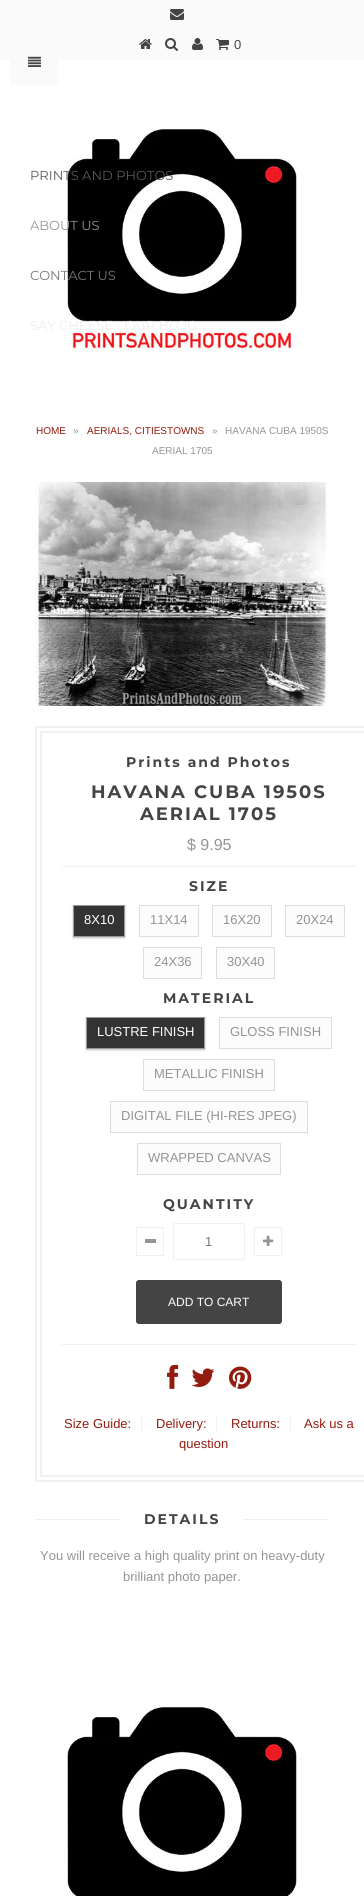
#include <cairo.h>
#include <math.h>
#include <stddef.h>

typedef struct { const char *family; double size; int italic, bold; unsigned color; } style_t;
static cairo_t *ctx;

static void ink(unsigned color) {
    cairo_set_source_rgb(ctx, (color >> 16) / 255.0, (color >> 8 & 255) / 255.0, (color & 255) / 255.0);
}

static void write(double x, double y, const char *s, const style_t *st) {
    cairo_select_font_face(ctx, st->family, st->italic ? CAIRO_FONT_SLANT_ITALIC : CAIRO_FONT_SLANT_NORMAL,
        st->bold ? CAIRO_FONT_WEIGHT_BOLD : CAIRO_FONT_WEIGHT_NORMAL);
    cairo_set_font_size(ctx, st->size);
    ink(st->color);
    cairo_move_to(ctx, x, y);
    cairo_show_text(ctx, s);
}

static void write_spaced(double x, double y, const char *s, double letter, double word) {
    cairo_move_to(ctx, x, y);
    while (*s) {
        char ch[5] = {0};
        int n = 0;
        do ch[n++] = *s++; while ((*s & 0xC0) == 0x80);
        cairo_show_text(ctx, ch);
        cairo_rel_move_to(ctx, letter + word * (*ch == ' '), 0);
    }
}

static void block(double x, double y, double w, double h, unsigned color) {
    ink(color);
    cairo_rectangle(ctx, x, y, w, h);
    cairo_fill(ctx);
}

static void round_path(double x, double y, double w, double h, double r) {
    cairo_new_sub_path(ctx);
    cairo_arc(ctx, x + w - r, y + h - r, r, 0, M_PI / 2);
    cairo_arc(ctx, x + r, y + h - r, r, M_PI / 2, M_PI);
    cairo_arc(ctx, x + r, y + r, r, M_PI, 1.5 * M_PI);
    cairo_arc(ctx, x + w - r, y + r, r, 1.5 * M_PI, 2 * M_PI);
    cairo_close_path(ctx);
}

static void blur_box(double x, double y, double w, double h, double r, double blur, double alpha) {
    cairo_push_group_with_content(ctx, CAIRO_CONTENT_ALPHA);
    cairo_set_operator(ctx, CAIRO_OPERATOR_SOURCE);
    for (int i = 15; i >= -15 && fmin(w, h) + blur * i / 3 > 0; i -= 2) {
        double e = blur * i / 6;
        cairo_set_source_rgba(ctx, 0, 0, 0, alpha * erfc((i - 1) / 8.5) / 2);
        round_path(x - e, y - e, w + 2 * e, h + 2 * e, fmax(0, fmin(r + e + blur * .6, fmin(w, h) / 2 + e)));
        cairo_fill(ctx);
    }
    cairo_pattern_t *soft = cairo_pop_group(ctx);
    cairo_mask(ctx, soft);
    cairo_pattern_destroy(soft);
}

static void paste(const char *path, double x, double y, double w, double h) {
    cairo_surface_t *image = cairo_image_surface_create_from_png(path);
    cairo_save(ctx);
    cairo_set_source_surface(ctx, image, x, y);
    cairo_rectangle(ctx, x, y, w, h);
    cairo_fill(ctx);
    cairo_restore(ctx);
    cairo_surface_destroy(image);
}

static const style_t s1 = {"Liberation Sans", 13, 0, 0, 0x444444};
static const style_t s2 = {"Liberation Sans", 10, 0, 0, 0x941b0f};
static const style_t s3 = {"Liberation Sans", 10, 0, 0, 0x949494};
static const style_t s4 = {"Liberation Sans", 16, 0, 0, 0x949494};
static const style_t s5 = {"Liberation Sans", 13, 0, 0, 0xffffff};
static const style_t s6 = {"Liberation Sans", 13, 0, 0, 0x949494};
static const style_t s7 = {"Liberation Sans", 13, 0, 0, 0x777777};
static const style_t s8 = {"Liberation Sans", 12, 0, 0, 0xffffff};
static const style_t s9 = {"Liberation Sans", 13, 0, 0, 0x941b0f};
static const style_t s10 = {"Montserrat", 13, 0, 0, 0x585858};
static const style_t s11 = {"Montserrat", 13, 0, 0, 0x949494};
static const style_t s12 = {"Montserrat", 13, 0, 0, 0x777777};
static const style_t s13 = {"Montserrat", 13, 0, 0, 0xededed};

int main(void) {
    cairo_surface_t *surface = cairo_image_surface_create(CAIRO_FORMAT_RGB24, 364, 1896);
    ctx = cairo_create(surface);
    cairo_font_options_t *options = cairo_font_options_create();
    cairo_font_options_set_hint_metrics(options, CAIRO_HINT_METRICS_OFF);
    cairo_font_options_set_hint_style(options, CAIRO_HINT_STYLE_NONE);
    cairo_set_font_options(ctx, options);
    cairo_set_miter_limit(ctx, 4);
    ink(0xffffff);
    cairo_paint(ctx);
    block(0, 0, 364, 60, 0xfafafa);
    paste("pic1.png", 170, 9, 14, 11);
    paste("pic2.png", 139, 39, 13, 10);
    paste("pic3.png", 165, 38, 13, 13);
    paste("pic4.png", 192, 38, 11, 12);
    paste("pic5.png", 216, 39, 13, 11);
    write(234, 49, "0", &s1);
    paste("pic6.png", 66, 127, 231, 224);
    write(36, 434, "HOME", &s2);
    write(73, 434, "»", &s3);
    write(87, 434, "AERIALS, CITIESTOWNS", &s2);
    write(212, 434, "»", &s3);
    write(225, 434, "HAVANA CUBA 1950S", &s3);
    write(152, 454, "AERIAL 1705", &s3);
    paste("pic7.png", 35, 482, 294, 224);
    cairo_rectangle(ctx, 36, 727, 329, 754);
    ink(0xf0f0f0);
    cairo_stroke(ctx);
    cairo_rectangle(ctx, 41, 732, 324, 744);
    cairo_stroke(ctx);
    cairo_select_font_face(ctx, "Montserrat", CAIRO_FONT_SLANT_NORMAL, CAIRO_FONT_WEIGHT_BOLD);
    cairo_set_font_size(ctx, 14);
    ink(0x444444);
    write_spaced(126, 767, "Prints and Photos", 2, 0);
    cairo_set_font_size(ctx, 18);
    write_spaced(91, 798, "HAVANA CUBA 1950S", 2, 0);
    write_spaced(140, 820, "AERIAL 1705", 2, 0);
    write(187, 850, "$ 9.95", &s4);
    block(62, 866, 294, 1, 0xf0f0f0);
    block(62, 1344, 294, 1, 0xf0f0f0);
    cairo_select_font_face(ctx, "Montserrat", CAIRO_FONT_SLANT_NORMAL, CAIRO_FONT_WEIGHT_BOLD);
    cairo_set_font_size(ctx, 14);
    ink(0x444444);
    write_spaced(189, 891, "SIZE", 2, 0);
    ink(0x000000);
    blur_box(73, 906, 52, 32, 0, 1, 0.25);
    ink(0x333333);
    cairo_rectangle(ctx, 73.5, 905.5, 51, 31);
    cairo_fill_preserve(ctx);
    ink(0x999999);
    cairo_set_line_width(ctx, 1);
    cairo_stroke(ctx);
    write(84, 924, "8X10", &s5);
    ink(0xfcfcfc);
    cairo_rectangle(ctx, 139.5, 905.5, 59, 31);
    cairo_fill_preserve(ctx);
    ink(0xdddddd);
    cairo_stroke(ctx);
    write(150, 924, "11X14", &s6);
    ink(0xfcfcfc);
    cairo_rectangle(ctx, 212.5, 905.5, 59, 31);
    cairo_fill_preserve(ctx);
    ink(0xdddddd);
    cairo_stroke(ctx);
    write(223, 924, "16X20", &s6);
    ink(0xfcfcfc);
    cairo_rectangle(ctx, 285.5, 905.5, 59, 31);
    cairo_fill_preserve(ctx);
    ink(0xdddddd);
    cairo_stroke(ctx);
    write(296, 924, "20X24", &s6);
    ink(0xfcfcfc);
    cairo_rectangle(ctx, 143.5, 947.5, 58, 31);
    cairo_fill_preserve(ctx);
    ink(0xdddddd);
    cairo_stroke(ctx);
    write(154, 966, "24X36", &s6);
    ink(0xfcfcfc);
    cairo_rectangle(ctx, 216.5, 947.5, 58, 31);
    cairo_fill_preserve(ctx);
    ink(0xdddddd);
    cairo_stroke(ctx);
    write(227, 966, "30X40", &s6);
    cairo_select_font_face(ctx, "Montserrat", CAIRO_FONT_SLANT_NORMAL, CAIRO_FONT_WEIGHT_BOLD);
    cairo_set_font_size(ctx, 14);
    ink(0x444444);
    write_spaced(163, 1003, "MATERIAL", 2, 0);
    ink(0x000000);
    blur_box(86, 1018, 119, 32, 0, 1, 0.25);
    ink(0x333333);
    cairo_rectangle(ctx, 86.5, 1017.5, 118, 31);
    cairo_fill_preserve(ctx);
    ink(0x999999);
    cairo_stroke(ctx);
    write(97, 1036, "LUSTRE FINISH", &s5);
    ink(0xfcfcfc);
    cairo_rectangle(ctx, 219.5, 1017.5, 112, 31);
    cairo_fill_preserve(ctx);
    ink(0xdddddd);
    cairo_stroke(ctx);
    write(230, 1036, "GLOSS FINISH", &s6);
    ink(0xfcfcfc);
    cairo_rectangle(ctx, 143.5, 1059.5, 131, 31);
    cairo_fill_preserve(ctx);
    ink(0xdddddd);
    cairo_stroke(ctx);
    write(154, 1078, "METALLIC FINISH", &s6);
    ink(0xfcfcfc);
    cairo_rectangle(ctx, 110.5, 1101.5, 197, 31);
    cairo_fill_preserve(ctx);
    ink(0xdddddd);
    cairo_stroke(ctx);
    write(121, 1120, "DIGITAL FILE (HI-RES JPEG)", &s6);
    ink(0xfcfcfc);
    cairo_rectangle(ctx, 137.5, 1143.5, 143, 31);
    cairo_fill_preserve(ctx);
    ink(0xdddddd);
    cairo_stroke(ctx);
    write(148, 1162, "WRAPPED CANVAS", &s6);
    cairo_select_font_face(ctx, "Montserrat", CAIRO_FONT_SLANT_NORMAL, CAIRO_FONT_WEIGHT_BOLD);
    cairo_set_font_size(ctx, 14);
    ink(0x444444);
    write_spaced(163, 1209, "QUANTITY", 2, 0);
    cairo_rectangle(ctx, 136.5, 1227.5, 27, 28);
    ink(0xf0f0f0);
    cairo_stroke(ctx);
    block(145, 1239, 11, 4, 0x949494);
    round_path(173.5, 1223.5, 71, 36, 1.5);
    ink(0xf0f0f0);
    cairo_stroke(ctx);
    write(205, 1246, "1", &s7);
    cairo_rectangle(ctx, 254.5, 1227.5, 27, 28);
    ink(0xf0f0f0);
    cairo_stroke(ctx);
    paste("pic8.png", 263, 1235, 11, 11);
    ink(0x444444);
    round_path(136, 1280, 146, 44, 3);
    cairo_fill(ctx);
    write(168, 1306, "ADD TO CART", &s8);
    paste("pic9.png", 167, 1364, 12, 25);
    paste("pic10.png", 191, 1368, 24, 19);
    paste("pic11.png", 229, 1366, 23, 23);
    write(64, 1428, "Size Guide:", &s9);
    block(141, 1416, 1, 15, 0xf0f0f0);
    write(156, 1428, "Delivery:", &s9);
    block(216, 1416, 1, 15, 0xf0f0f0);
    write(231, 1428, "Returns:", &s9);
    block(290, 1416, 1, 15, 0xf0f0f0);
    write(304, 1428, "Ask us a", &s9);
    write(179, 1448, "question", &s9);
    block(35, 1519, 294, 1, 0xf0f0f0);
    block(121, 1519, 122, 1, 0xffffff);
    cairo_select_font_face(ctx, "Montserrat", CAIRO_FONT_SLANT_NORMAL, CAIRO_FONT_WEIGHT_BOLD);
    cairo_set_font_size(ctx, 14);
    ink(0x444444);
    write_spaced(144, 1524, "DETAILS", 2, 0);
    write(40, 1560, "You will receive a high quality print on heavy-duty", &s6);
    write(123, 1581, "brilliant photo paper.", &s6);
    paste("pic12.png", 66, 1705, 231, 191);
    ink(0xfafafa);
    round_path(10, 40, 48, 45, 3);
    cairo_fill(ctx);
    paste("pic13.png", 28, 56, 13, 11);
    write(30, 180, "PRINTS AND PHOTOS", &s10);
    write(30, 230, "ABOUT US", &s11);
    write(30, 280, "CONTACT US", &s12);
    write(30, 330, "SAY CHEESE - OUR BLOG", &s13);
    cairo_surface_write_to_png(surface, "screenshot.png");
    cairo_font_options_destroy(options);
    cairo_destroy(ctx);
    cairo_surface_destroy(surface);
    return 0;
}
